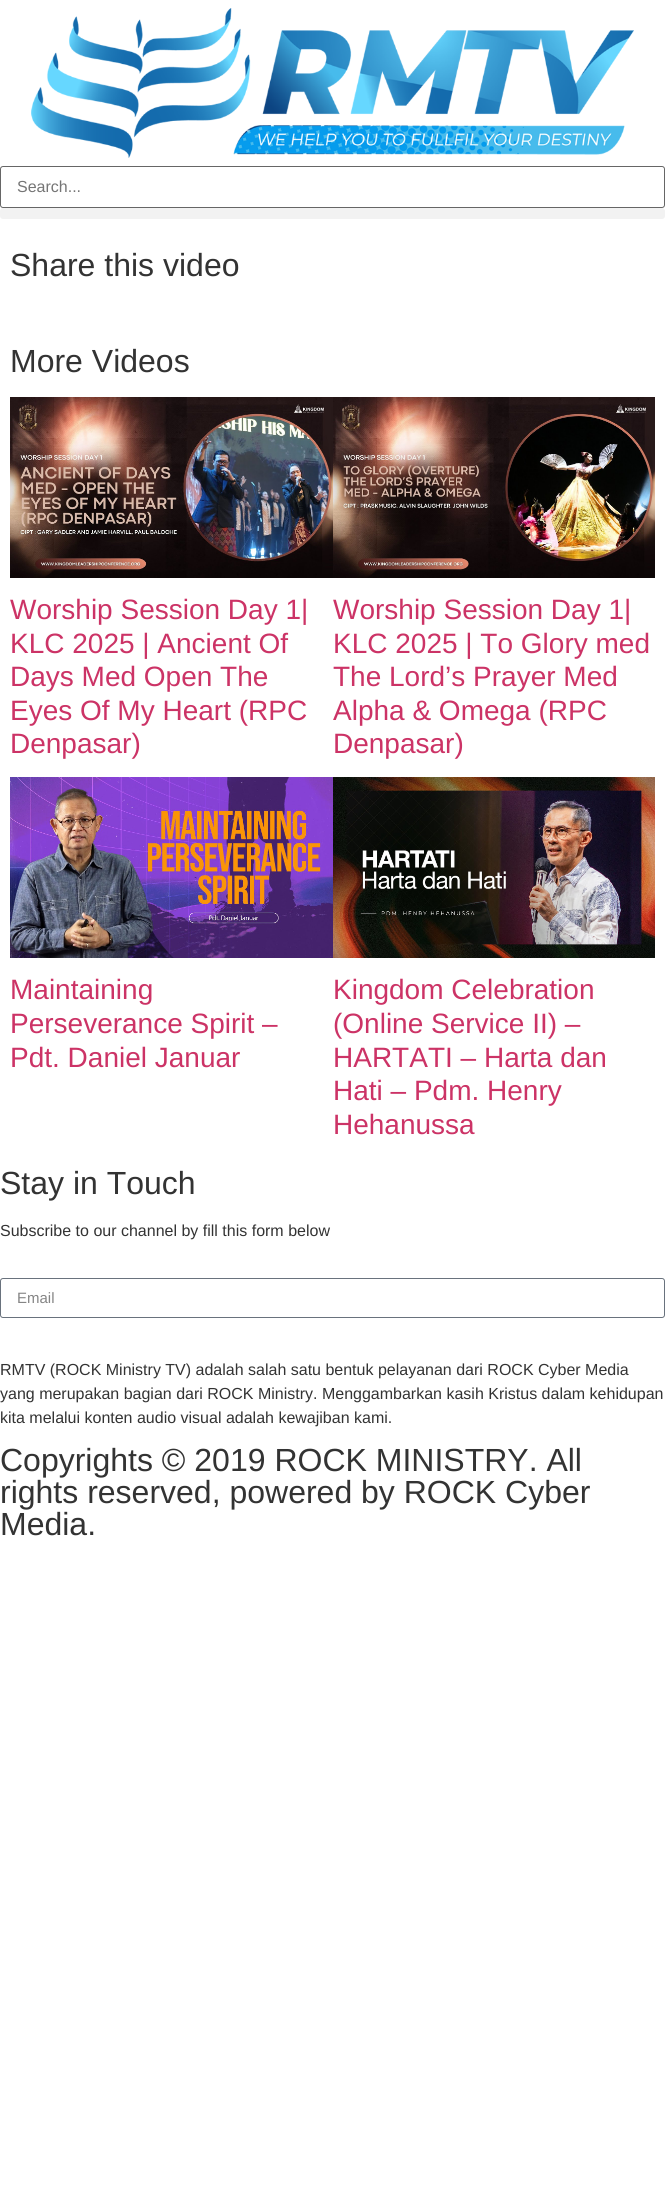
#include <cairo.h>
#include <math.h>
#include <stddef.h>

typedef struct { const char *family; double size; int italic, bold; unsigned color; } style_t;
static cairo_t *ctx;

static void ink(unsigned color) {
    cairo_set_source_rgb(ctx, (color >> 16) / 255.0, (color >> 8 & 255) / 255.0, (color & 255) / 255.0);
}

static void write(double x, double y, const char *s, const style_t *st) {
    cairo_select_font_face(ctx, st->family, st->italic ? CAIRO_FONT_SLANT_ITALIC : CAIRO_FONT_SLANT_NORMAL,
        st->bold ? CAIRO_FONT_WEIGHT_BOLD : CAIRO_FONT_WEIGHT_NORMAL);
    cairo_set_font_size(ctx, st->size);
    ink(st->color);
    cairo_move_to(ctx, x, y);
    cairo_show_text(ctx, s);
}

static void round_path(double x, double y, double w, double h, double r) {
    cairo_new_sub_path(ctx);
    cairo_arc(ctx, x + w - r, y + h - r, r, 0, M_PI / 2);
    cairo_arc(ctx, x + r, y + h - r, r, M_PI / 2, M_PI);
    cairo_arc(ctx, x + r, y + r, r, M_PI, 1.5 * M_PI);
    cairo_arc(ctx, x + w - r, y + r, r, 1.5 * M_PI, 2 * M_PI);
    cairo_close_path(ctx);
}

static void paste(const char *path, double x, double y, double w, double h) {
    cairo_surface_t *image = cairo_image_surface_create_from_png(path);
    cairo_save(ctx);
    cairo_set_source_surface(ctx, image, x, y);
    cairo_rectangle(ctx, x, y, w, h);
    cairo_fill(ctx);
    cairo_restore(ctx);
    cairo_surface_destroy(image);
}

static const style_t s1 = {"Liberation Sans", 16, 0, 0, 0x757575};
static const style_t s2 = {"Liberation Sans", 32, 0, 0, 0x333333};
static const style_t s3 = {"Liberation Sans", 28, 0, 0, 0xcc3366};
static const style_t s4 = {"Liberation Sans", 16, 0, 0, 0x333333};
static const style_t s5 = {"Liberation Sans", 15, 0, 0, 0x858585};

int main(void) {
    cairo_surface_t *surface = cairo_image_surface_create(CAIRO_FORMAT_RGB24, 665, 2188);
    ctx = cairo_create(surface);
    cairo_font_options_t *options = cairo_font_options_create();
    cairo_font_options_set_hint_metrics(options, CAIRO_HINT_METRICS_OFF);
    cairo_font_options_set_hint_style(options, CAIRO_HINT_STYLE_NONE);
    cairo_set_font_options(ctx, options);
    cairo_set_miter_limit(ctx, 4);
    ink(0xffffff);
    cairo_paint(ctx);
    paste("pic1.png", 31, 8, 603, 150);
    round_path(0.5, 166.5, 664, 41, 2.5);
    ink(0x666666);
    cairo_set_line_width(ctx, 1);
    cairo_stroke(ctx);
    write(17, 192, "Search...", &s1);
    ink(0xf2f2f2);
    round_path(0, 208, 665, 11, 3);
    cairo_fill(ctx);
    write(10, 276, "Share this video", &s2);
    write(10, 372, "More Videos", &s2);
    paste("pic2.png", 10, 397, 323, 181);
    write(10, 619, "Worship Session Day 1|", &s3);
    write(10, 653, "KLC 2025 | Ancient Of", &s3);
    write(10, 686, "Days Med Open The", &s3);
    write(10, 720, "Eyes Of My Heart (RPC", &s3);
    write(10, 753, "Denpasar)", &s3);
    paste("pic3.png", 333, 397, 322, 181);
    write(333, 619, "Worship Session Day 1|", &s3);
    write(333, 653, "KLC 2025 | To Glory med", &s3);
    write(333, 686, "The Lord’s Prayer Med", &s3);
    write(333, 720, "Alpha & Omega (RPC", &s3);
    write(333, 753, "Denpasar)", &s3);
    paste("pic4.png", 10, 777, 323, 181);
    write(10, 999, "Maintaining", &s3);
    write(10, 1033, "Perseverance Spirit –", &s3);
    write(10, 1067, "Pdt. Daniel Januar", &s3);
    paste("pic5.png", 333, 777, 322, 181);
    write(333, 999, "Kingdom Celebration", &s3);
    write(333, 1033, "(Online Service II) –", &s3);
    write(333, 1067, "HARTATI – Harta dan", &s3);
    write(333, 1100, "Hati – Pdm. Henry", &s3);
    write(333, 1134, "Hehanussa", &s3);
    write(0, 1194, "Stay in Touch", &s2);
    write(0, 1236, "Subscribe to our channel by fill this form below", &s4);
    round_path(0.5, 1278.5, 664, 39, 2.5);
    ink(0x69727d);
    cairo_stroke(ctx);
    write(17, 1303, "Email", &s5);
    write(0, 1375, "RMTV (ROCK Ministry TV) adalah salah satu bentuk pelayanan dari ROCK Cyber Media", &s4);
    write(0, 1399, "yang merupakan bagian dari ROCK Ministry. Menggambarkan kasih Kristus dalam kehidupan", &s4);
    write(0, 1423, "kita melalui konten audio visual adalah kewajiban kami.", &s4);
    write(0, 1471, "Copyrights © 2019 ROCK MINISTRY. All", &s2);
    write(0, 1503, "rights reserved, powered by ROCK Cyber", &s2);
    write(0, 1535, "Media.", &s2);
    cairo_surface_write_to_png(surface, "screenshot.png");
    cairo_font_options_destroy(options);
    cairo_destroy(ctx);
    cairo_surface_destroy(surface);
    return 0;
}
